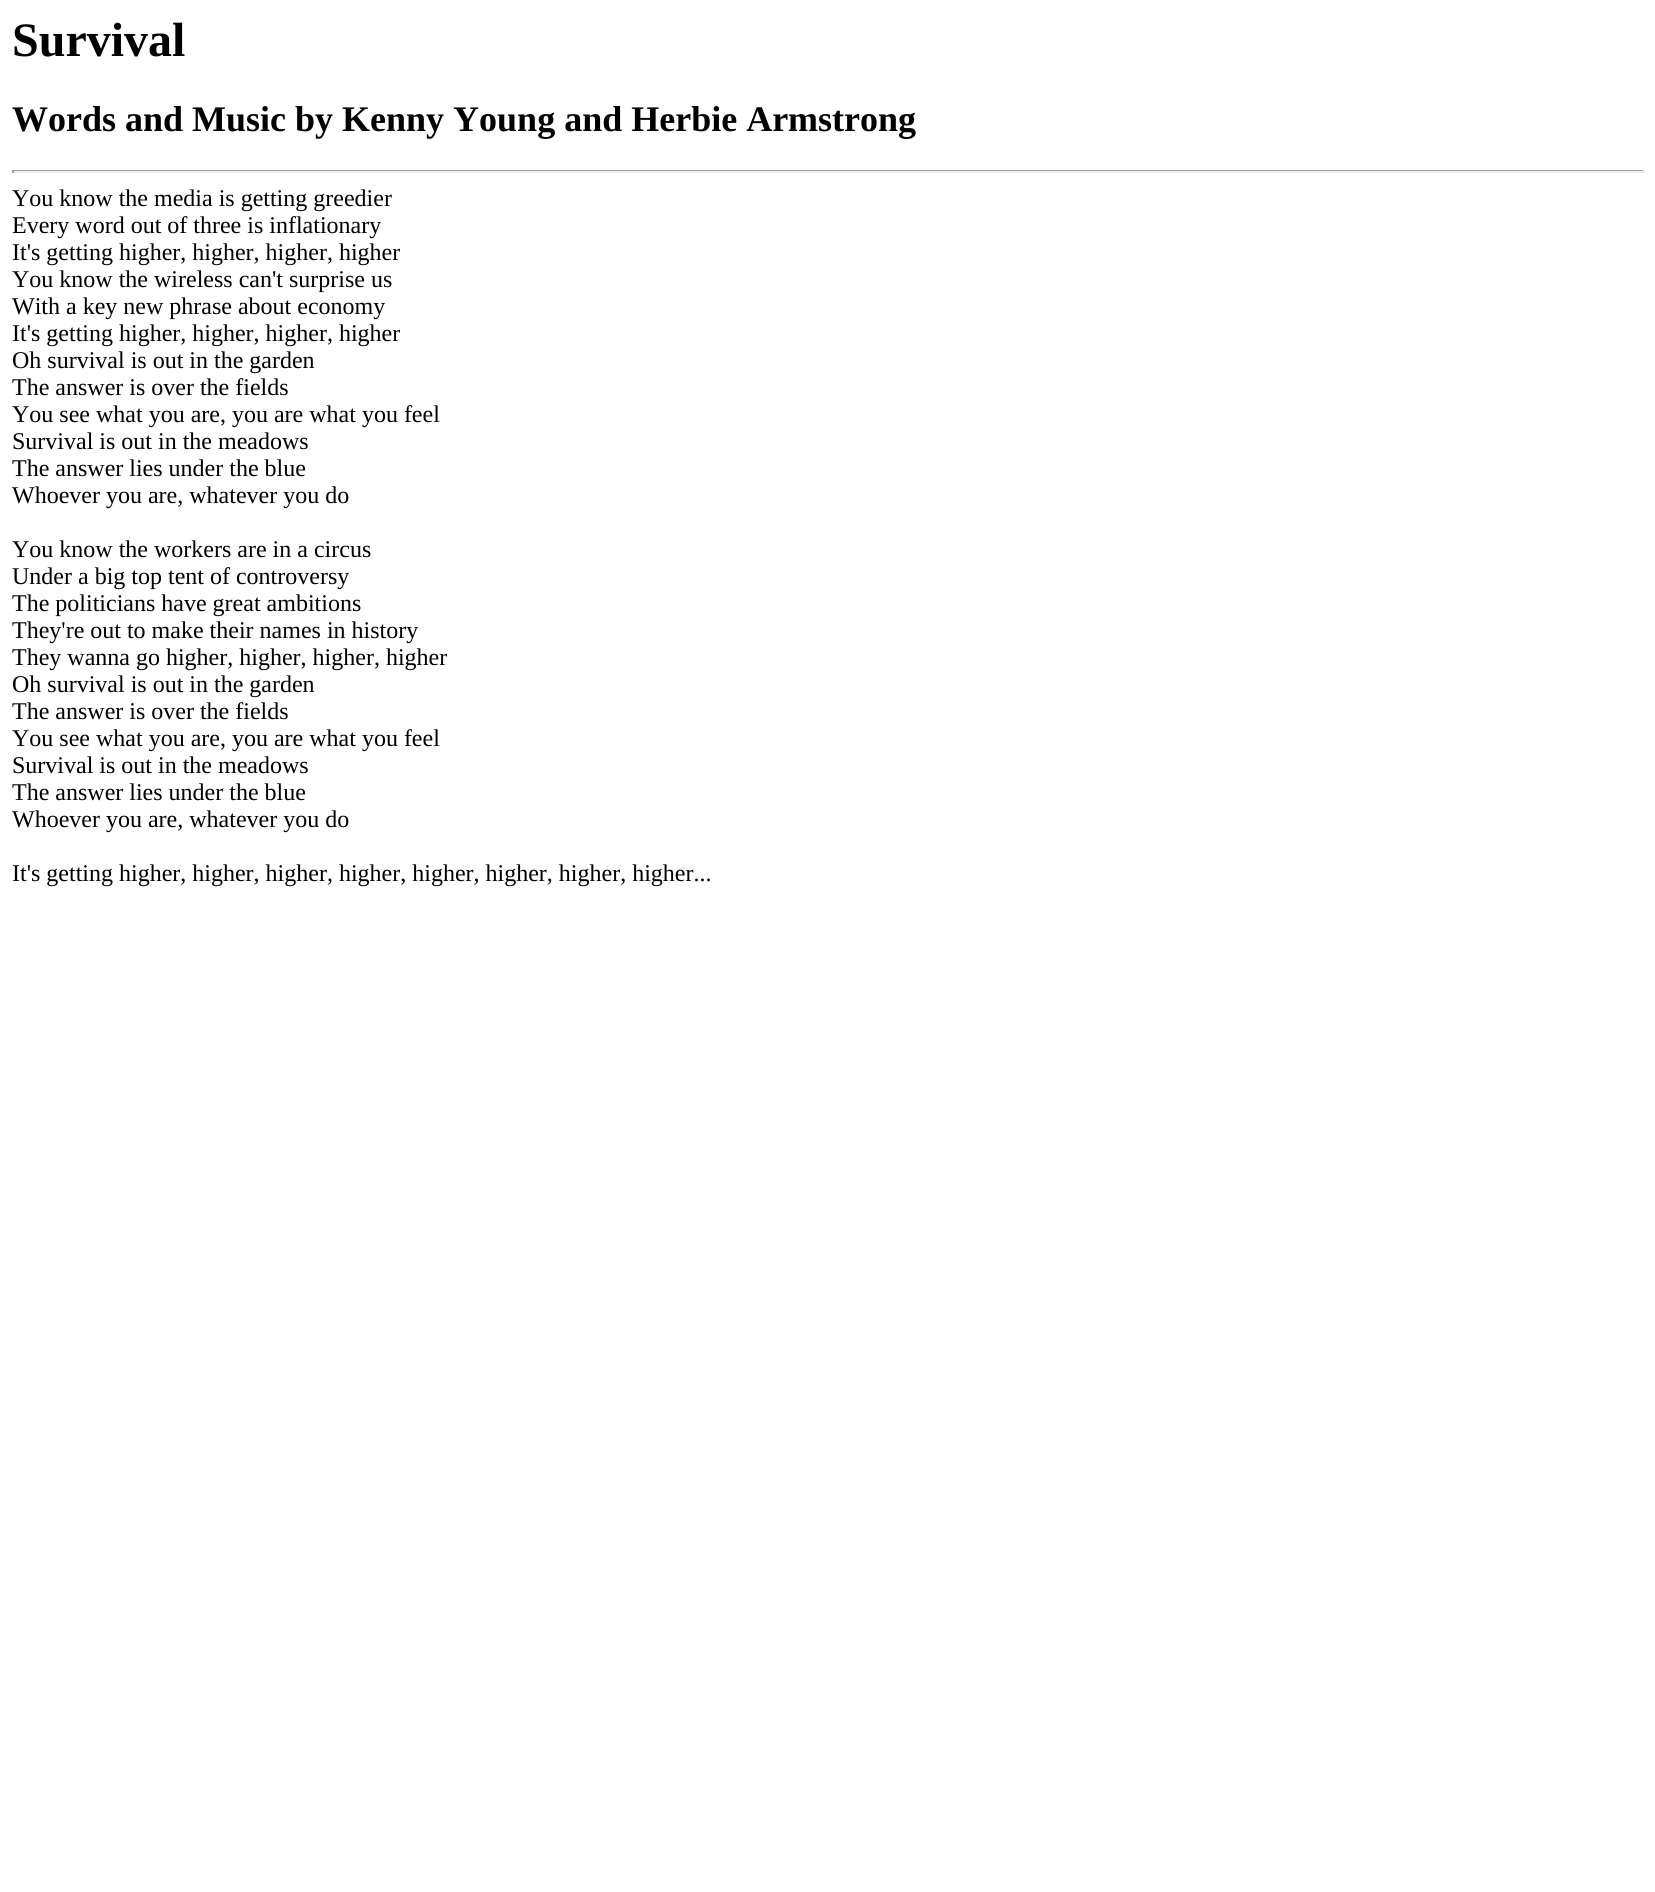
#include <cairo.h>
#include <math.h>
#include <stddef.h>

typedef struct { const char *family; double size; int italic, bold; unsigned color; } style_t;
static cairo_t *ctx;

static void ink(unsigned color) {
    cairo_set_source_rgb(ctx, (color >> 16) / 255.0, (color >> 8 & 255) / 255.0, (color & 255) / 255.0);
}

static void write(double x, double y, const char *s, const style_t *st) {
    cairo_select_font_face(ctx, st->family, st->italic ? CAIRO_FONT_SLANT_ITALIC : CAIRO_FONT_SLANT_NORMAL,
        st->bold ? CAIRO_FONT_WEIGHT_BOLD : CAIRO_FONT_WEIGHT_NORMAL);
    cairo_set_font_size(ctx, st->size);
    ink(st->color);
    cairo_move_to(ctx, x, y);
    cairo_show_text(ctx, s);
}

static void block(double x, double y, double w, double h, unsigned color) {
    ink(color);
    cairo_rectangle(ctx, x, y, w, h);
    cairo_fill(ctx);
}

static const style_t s1 = {"Liberation Serif", 48, 0, 1, 0x000000};
static const style_t s2 = {"Liberation Serif", 36, 0, 1, 0x000000};
static const style_t s3 = {"Liberation Serif", 24, 0, 0, 0x000000};

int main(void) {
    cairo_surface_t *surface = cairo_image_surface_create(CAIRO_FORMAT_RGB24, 1655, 1892);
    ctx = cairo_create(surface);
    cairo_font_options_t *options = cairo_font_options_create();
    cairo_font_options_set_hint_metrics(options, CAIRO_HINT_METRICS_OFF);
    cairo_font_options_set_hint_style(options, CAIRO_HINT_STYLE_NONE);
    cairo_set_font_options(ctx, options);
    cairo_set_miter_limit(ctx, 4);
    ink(0xffffff);
    cairo_paint(ctx);
    write(12, 56, "Survival", &s1);
    write(12, 131, "Words and Music by Kenny Young and Herbie Armstrong", &s2);
    block(12, 170, 1632, 1, 0x9f9f9f);
    block(1643, 170, 2, 3, 0xeeeeee);
    block(12, 171, 1632, 2, 0xeeeeee);
    block(12, 170, 2, 3, 0x9f9f9f);
    write(12, 206, "You know the media is getting greedier", &s3);
    write(12, 233, "Every word out of three is inflationary", &s3);
    write(12, 260, "It's getting higher, higher, higher, higher", &s3);
    write(12, 287, "You know the wireless can't surprise us", &s3);
    write(12, 314, "With a key new phrase about economy", &s3);
    write(12, 341, "It's getting higher, higher, higher, higher", &s3);
    write(12, 368, "Oh survival is out in the garden", &s3);
    write(12, 395, "The answer is over the fields", &s3);
    write(12, 422, "You see what you are, you are what you feel", &s3);
    write(12, 449, "Survival is out in the meadows", &s3);
    write(12, 476, "The answer lies under the blue", &s3);
    write(12, 503, "Whoever you are, whatever you do", &s3);
    write(12, 557, "You know the workers are in a circus", &s3);
    write(12, 584, "Under a big top tent of controversy", &s3);
    write(12, 611, "The politicians have great ambitions", &s3);
    write(12, 638, "They're out to make their names in history", &s3);
    write(12, 665, "They wanna go higher, higher, higher, higher", &s3);
    write(12, 692, "Oh survival is out in the garden", &s3);
    write(12, 719, "The answer is over the fields", &s3);
    write(12, 746, "You see what you are, you are what you feel", &s3);
    write(12, 773, "Survival is out in the meadows", &s3);
    write(12, 800, "The answer lies under the blue", &s3);
    write(12, 827, "Whoever you are, whatever you do", &s3);
    write(12, 881, "It's getting higher, higher, higher, higher, higher, higher, higher, higher...", &s3);
    cairo_surface_write_to_png(surface, "screenshot.png");
    cairo_font_options_destroy(options);
    cairo_destroy(ctx);
    cairo_surface_destroy(surface);
    return 0;
}
